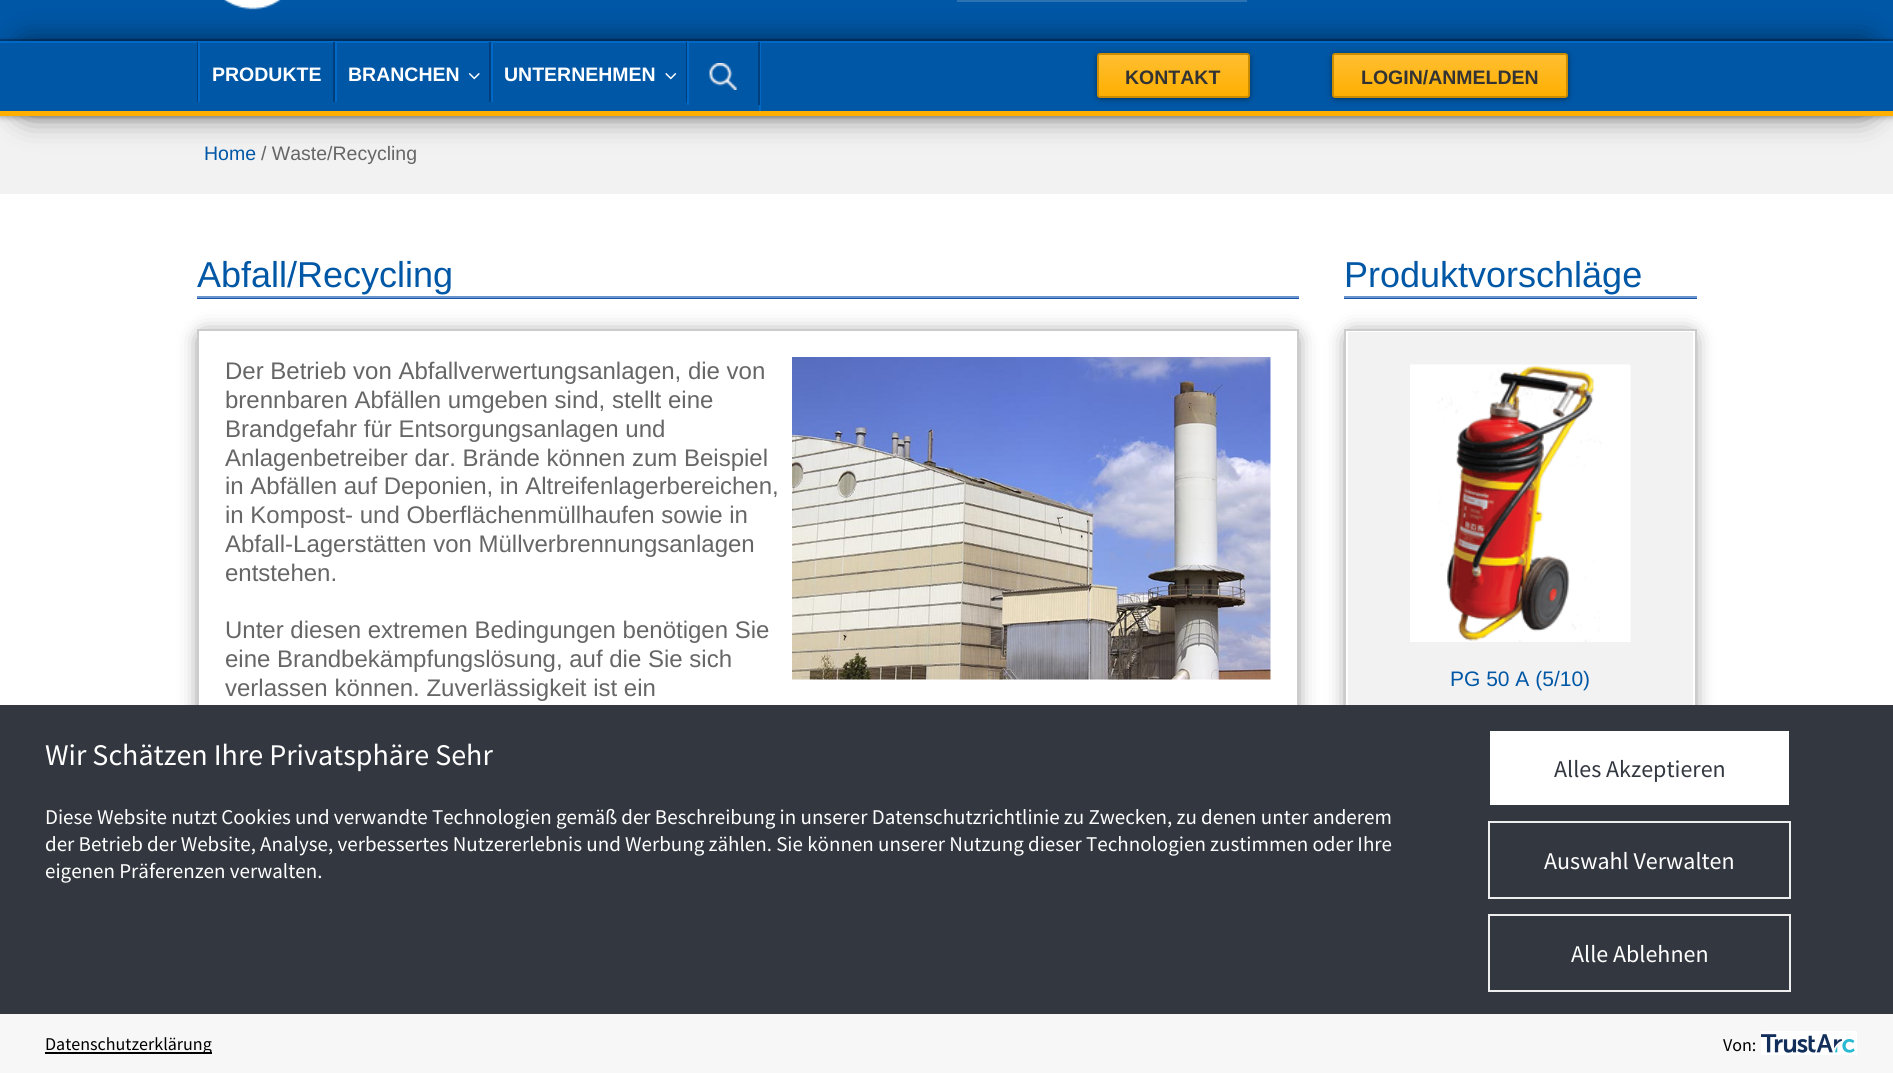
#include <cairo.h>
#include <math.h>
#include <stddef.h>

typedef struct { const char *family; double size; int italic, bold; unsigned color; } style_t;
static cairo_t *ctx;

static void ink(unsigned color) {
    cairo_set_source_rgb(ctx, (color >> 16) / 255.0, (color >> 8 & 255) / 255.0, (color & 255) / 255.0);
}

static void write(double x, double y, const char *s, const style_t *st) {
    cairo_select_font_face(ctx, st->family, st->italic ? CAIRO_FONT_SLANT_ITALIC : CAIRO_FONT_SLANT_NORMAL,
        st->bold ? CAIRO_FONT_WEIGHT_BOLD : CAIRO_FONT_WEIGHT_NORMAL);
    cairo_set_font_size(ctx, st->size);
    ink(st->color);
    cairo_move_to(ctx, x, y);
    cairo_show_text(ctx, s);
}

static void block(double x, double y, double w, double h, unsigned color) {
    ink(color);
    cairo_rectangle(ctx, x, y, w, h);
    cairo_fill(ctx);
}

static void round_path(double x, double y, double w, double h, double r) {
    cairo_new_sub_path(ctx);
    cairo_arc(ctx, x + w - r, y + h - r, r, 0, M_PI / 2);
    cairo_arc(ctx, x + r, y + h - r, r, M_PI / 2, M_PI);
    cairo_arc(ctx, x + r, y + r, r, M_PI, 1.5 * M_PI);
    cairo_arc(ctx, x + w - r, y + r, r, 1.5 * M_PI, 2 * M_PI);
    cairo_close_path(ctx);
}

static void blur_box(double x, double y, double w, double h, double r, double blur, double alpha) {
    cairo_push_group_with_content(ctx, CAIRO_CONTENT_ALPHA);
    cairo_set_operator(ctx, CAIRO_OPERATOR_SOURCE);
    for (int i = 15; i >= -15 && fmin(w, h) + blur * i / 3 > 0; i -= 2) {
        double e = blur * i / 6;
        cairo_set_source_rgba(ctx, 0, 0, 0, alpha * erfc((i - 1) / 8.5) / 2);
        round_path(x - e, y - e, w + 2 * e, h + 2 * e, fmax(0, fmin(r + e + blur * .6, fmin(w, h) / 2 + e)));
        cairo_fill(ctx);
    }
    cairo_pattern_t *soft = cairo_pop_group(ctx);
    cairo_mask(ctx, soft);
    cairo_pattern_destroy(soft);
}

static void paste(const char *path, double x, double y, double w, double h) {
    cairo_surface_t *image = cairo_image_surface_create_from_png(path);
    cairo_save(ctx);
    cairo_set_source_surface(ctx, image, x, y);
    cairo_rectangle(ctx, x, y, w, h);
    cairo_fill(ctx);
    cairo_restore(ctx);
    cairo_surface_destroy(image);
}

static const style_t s1 = {"Liberation Sans", 19.5, 0, 1, 0xffffff};
static const style_t s2 = {"Liberation Sans", 19.5, 0, 1, 0x333333};
static const style_t s3 = {"Liberation Sans", 19.5, 0, 0, 0x0057a6};
static const style_t s4 = {"Liberation Sans", 19.5, 0, 0, 0x666666};
static const style_t s5 = {"Liberation Sans", 36, 0, 0, 0x0057a6};
static const style_t s6 = {"Liberation Sans", 24, 0, 0, 0x666666};
static const style_t s7 = {"Liberation Sans", 21, 0, 0, 0x0057a6};
static const style_t s8 = {"Source Sans Pro", 30, 0, 0, 0xffffff};
static const style_t s9 = {"Source Sans Pro", 21, 0, 0, 0xffffff};
static const style_t s10 = {"Source Sans Pro", 24, 0, 0, 0x333740};
static const style_t s11 = {"Source Sans Pro", 24, 0, 0, 0xffffff};
static const style_t s12 = {"Source Sans Pro", 18, 0, 0, 0x000000};

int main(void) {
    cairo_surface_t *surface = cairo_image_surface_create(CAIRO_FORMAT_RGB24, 1893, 1073);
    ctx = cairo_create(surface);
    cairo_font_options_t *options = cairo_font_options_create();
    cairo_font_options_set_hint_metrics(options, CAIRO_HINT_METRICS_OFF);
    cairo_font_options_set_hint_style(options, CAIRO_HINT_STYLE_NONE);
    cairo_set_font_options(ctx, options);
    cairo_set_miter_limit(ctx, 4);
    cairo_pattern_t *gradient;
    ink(0xffffff);
    cairo_paint(ctx);
    block(0, 0, 1893, 39, 0x0057a6);
    block(0, 39, 1893, 2, 0x003f7b);
    paste("pic1.png", 224, 0, 57, 10);
    block(0, 116, 1893, 78, 0xf2f2f2);
    ink(0x000000);
    blur_box(15, 41, 1863, 75, 15, 15, 0.5);
    cairo_rectangle(ctx, 958, -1, 288, 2);
    ink(0x2c73b3);
    cairo_stroke(ctx);
    ink(0x000000);
    blur_box(0, 42, 1893, 75, 0, 3, 0.3);
    block(0, 43, 1893, 68, 0x0057a6);
    block(0, 41, 1893, 2, 0x0068c7);
    block(0, 111, 1893, 5, 0xffaf00);
    block(197, 42, 1, 60, 0x003f7b);
    block(333, 42, 2, 60, 0x003f7b);
    block(198, 42, 2, 60, 0x0068c7);
    write(212, 81, "PRODUKTE", &s1);
    block(489, 42, 2, 60, 0x003f7b);
    block(335, 42, 2, 60, 0x0068c7);
    write(348, 81, "BRANCHEN", &s1);
    paste("pic2.png", 468, 73, 12, 7);
    block(686, 42, 1, 60, 0x003f7b);
    block(491, 42, 2, 60, 0x0068c7);
    write(504, 81, "UNTERNEHMEN", &s1);
    paste("pic3.png", 665, 73, 12, 7);
    block(759, 42, 2, 69, 0x0068c7);
    block(758, 42, 2, 63, 0x003f7b);
    block(687, 42, 2, 63, 0x0068c7);
    paste("pic4.png", 709, 63, 28, 27);
    ink(0x000000);
    blur_box(1100, 57, 147, 39, 0, 4, 1);
    gradient = cairo_pattern_create_linear(1173, 54, 1173, 96);
    cairo_pattern_add_color_stop_rgba(gradient, 0, 1, 0.749, 0.2, 1);
    cairo_pattern_add_color_stop_rgba(gradient, 1, 1, 0.686, 0, 1);
    cairo_set_source(ctx, gradient);
    cairo_pattern_destroy(gradient);
    cairo_rectangle(ctx, 1099, 55, 149, 41);
    cairo_fill(ctx);
    round_path(1098, 54, 151, 43, 2);
    ink(0xcc8c00);
    cairo_stroke(ctx);
    write(1125, 84, "KONTAKT", &s2);
    ink(0x000000);
    blur_box(1335, 57, 230, 39, 0, 4, 1);
    gradient = cairo_pattern_create_linear(1450, 54, 1450, 96);
    cairo_pattern_add_color_stop_rgba(gradient, 0, 1, 0.749, 0.2, 1);
    cairo_pattern_add_color_stop_rgba(gradient, 1, 1, 0.686, 0, 1);
    cairo_set_source(ctx, gradient);
    cairo_pattern_destroy(gradient);
    cairo_rectangle(ctx, 1334, 55, 232, 41);
    cairo_fill(ctx);
    round_path(1333, 54, 234, 43, 2);
    ink(0xcc8c00);
    cairo_stroke(ctx);
    write(1361, 84, "LOGIN/ANMELDEN", &s2);
    write(204, 160, "Home", &s3);
    write(261, 160, "/ Waste/Recycling", &s4);
    write(197, 287, "Abfall/Recycling", &s5);
    block(197, 298, 1102, 1, 0x1d55aa);
    block(197, 296, 1102, 2, 0x6a96d0);
    cairo_save(ctx);
    cairo_set_fill_rule(ctx, CAIRO_FILL_RULE_EVEN_ODD);
    cairo_new_path(ctx);
    cairo_move_to(ctx, 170, 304);
    cairo_line_to(ctx, 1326, 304);
    cairo_line_to(ctx, 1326, 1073);
    cairo_line_to(ctx, 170, 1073);
    cairo_close_path(ctx);
    cairo_move_to(ctx, 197, 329);
    cairo_line_to(ctx, 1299, 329);
    cairo_line_to(ctx, 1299, 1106);
    cairo_line_to(ctx, 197, 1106);
    cairo_close_path(ctx);
    cairo_clip(ctx);
    ink(0x444444);
    blur_box(204, 338, 1088, 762, 0, 11, 1);
    cairo_restore(ctx);
    cairo_rectangle(ctx, 198, 330, 1100, 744);
    ink(0xcccccc);
    cairo_stroke(ctx);
    write(225, 379, "Der Betrieb von Abfallverwertungsanlagen, die von", &s6);
    paste("pic5.png", 792, 357, 479, 323);
    write(225, 408, "brennbaren Abfällen umgeben sind, stellt eine", &s6);
    write(225, 437, "Brandgefahr für Entsorgungsanlagen und", &s6);
    write(225, 466, "Anlagenbetreiber dar. Brände können zum Beispiel", &s6);
    write(225, 494, "in Abfällen auf Deponien, in Altreifenlagerbereichen,", &s6);
    write(225, 523, "in Kompost- und Oberflächenmüllhaufen sowie in", &s6);
    write(225, 552, "Abfall-Lagerstätten von Müllverbrennungsanlagen", &s6);
    write(225, 581, "entstehen.", &s6);
    write(225, 638, "Unter diesen extremen Bedingungen benötigen Sie", &s6);
    write(225, 667, "eine Brandbekämpfungslösung, auf die Sie sich", &s6);
    write(225, 696, "verlassen können. Zuverlässigkeit ist ein", &s6);
    write(1344, 287, "Produktvorschläge", &s5);
    block(1344, 298, 353, 1, 0x1d55aa);
    block(1344, 296, 353, 2, 0x6a96d0);
    ink(0x444444);
    blur_box(1352, 338, 337, 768, 0, 11, 1);
    block(1348, 332, 345, 373, 0xf2f2f2);
    cairo_rectangle(ctx, 1347, 331, 347, 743);
    ink(0xffffff);
    cairo_stroke(ctx);
    cairo_rectangle(ctx, 1345, 330, 351, 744);
    ink(0xcccccc);
    cairo_stroke(ctx);
    paste("pic6.png", 1410, 364, 221, 278);
    write(1450, 686, "PG 50 A (5/10)", &s7);
    block(0, 705, 1893, 309, 0x333740);
    write(45, 765, "Wir Schätzen Ihre Privatsphäre Sehr", &s8);
    write(45, 824, "Diese Website nutzt Cookies und verwandte Technologien gemäß der Beschreibung in unserer Datenschutzrichtlinie zu Zwecken, zu denen unter anderem", &s9);
    write(45, 851, "der Betrieb der Website, Analyse, verbessertes Nutzererlebnis und Werbung zählen. Sie können unserer Nutzung dieser Technologien zustimmen oder Ihre", &s9);
    write(45, 878, "eigenen Präferenzen verwalten.", &s9);
    block(1490, 731, 299, 74, 0xffffff);
    write(1554, 777, "Alles Akzeptieren", &s10);
    cairo_rectangle(ctx, 1489, 822, 301, 76);
    ink(0xeeeeee);
    cairo_stroke(ctx);
    write(1544, 869, "Auswahl Verwalten", &s11);
    cairo_rectangle(ctx, 1489, 915, 301, 76);
    ink(0xeeeeee);
    cairo_stroke(ctx);
    write(1571, 962, "Alle Ablehnen", &s11);
    block(0, 1014, 1893, 59, 0xf7f7f7);
    block(45, 1052, 167, 2, 0x000000);
    write(45, 1050, "Datenschutzerklärung", &s12);
    write(1723, 1051, "Von:", &s12);
    paste("pic7.png", 1761, 1031, 96, 24);
    cairo_surface_write_to_png(surface, "screenshot.png");
    cairo_font_options_destroy(options);
    cairo_destroy(ctx);
    cairo_surface_destroy(surface);
    return 0;
}
